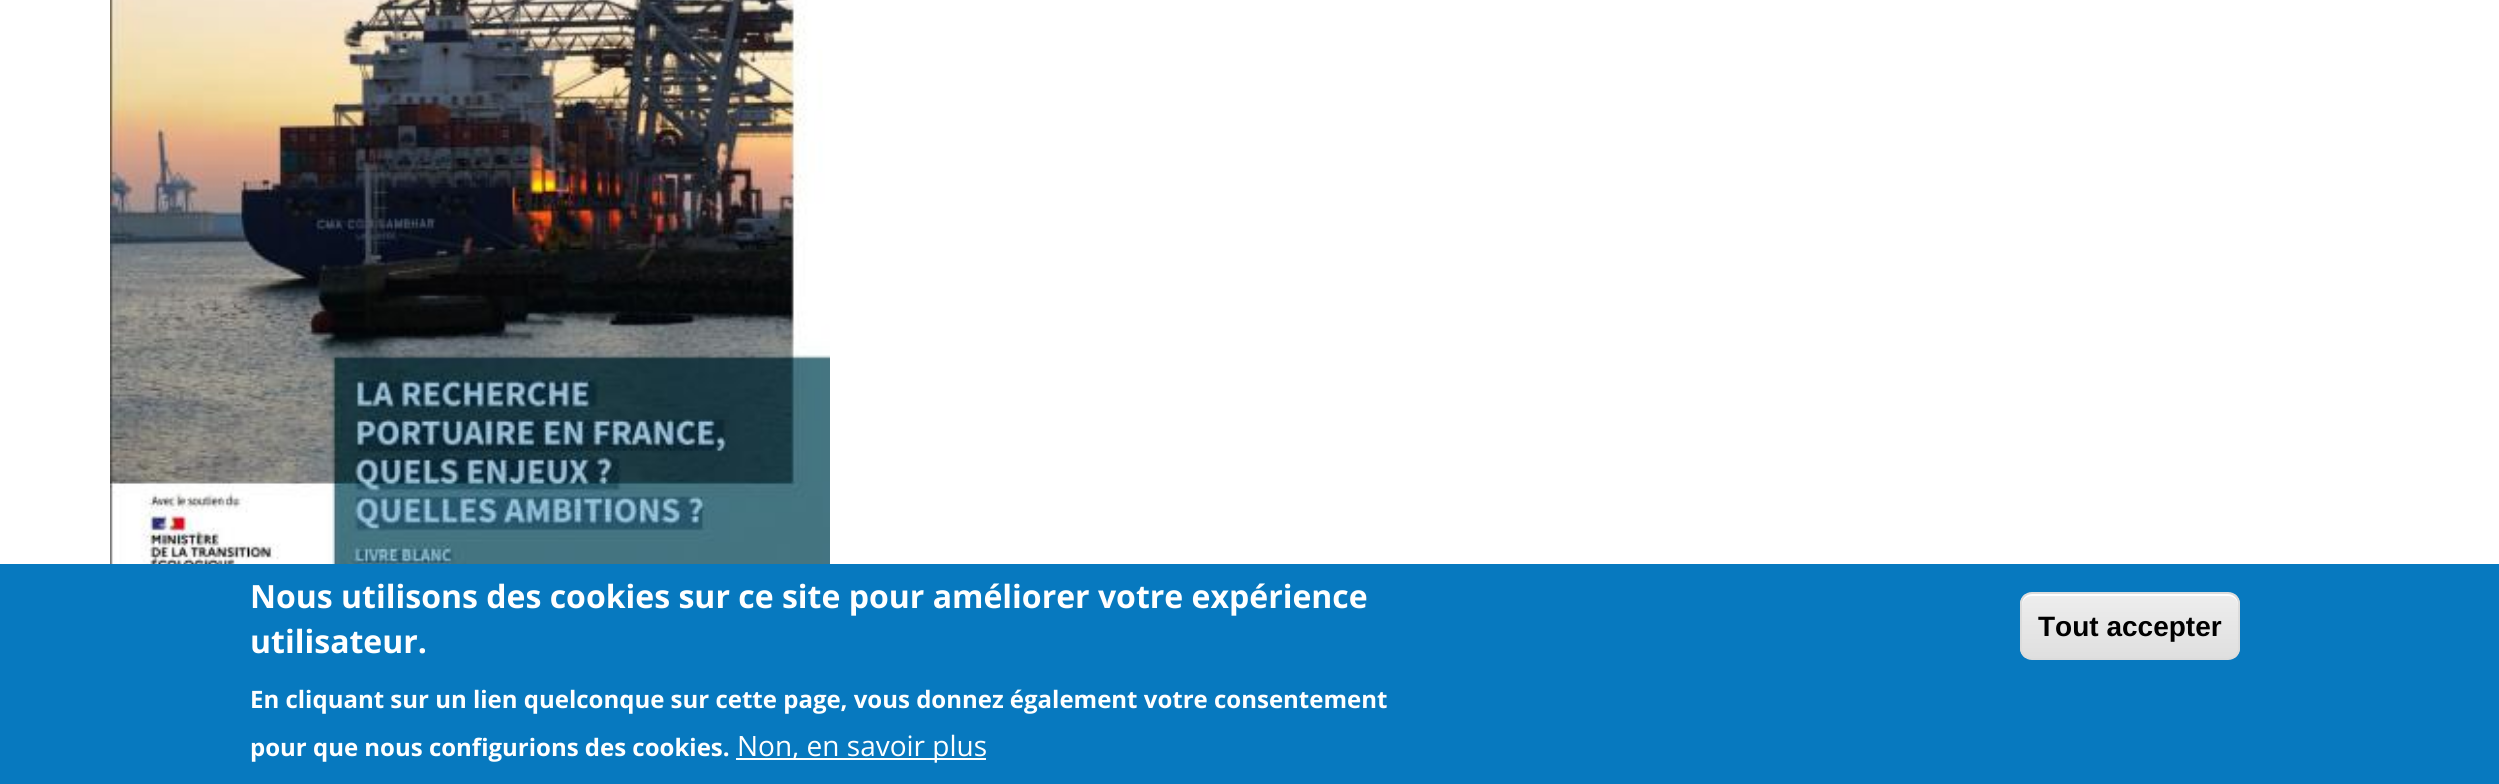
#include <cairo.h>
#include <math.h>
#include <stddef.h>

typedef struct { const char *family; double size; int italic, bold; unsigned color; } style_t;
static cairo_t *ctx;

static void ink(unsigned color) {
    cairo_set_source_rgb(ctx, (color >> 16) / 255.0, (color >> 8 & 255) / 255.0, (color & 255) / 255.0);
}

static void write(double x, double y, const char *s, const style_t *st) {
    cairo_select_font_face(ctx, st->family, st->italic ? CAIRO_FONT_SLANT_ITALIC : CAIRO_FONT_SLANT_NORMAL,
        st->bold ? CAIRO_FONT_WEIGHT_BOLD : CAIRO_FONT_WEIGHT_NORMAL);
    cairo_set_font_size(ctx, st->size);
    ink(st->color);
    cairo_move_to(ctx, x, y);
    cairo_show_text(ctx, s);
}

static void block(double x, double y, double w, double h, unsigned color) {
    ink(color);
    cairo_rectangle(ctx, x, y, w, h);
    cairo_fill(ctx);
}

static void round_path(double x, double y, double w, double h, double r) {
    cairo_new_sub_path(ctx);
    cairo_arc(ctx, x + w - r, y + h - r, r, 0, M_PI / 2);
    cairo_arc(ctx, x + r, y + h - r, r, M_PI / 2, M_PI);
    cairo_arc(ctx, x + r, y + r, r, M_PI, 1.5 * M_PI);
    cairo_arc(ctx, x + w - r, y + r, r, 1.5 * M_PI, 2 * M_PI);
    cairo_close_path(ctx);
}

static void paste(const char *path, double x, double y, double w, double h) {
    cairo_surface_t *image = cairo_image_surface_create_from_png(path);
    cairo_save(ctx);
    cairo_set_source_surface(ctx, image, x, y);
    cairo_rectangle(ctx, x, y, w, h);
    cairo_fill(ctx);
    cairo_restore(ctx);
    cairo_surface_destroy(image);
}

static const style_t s1 = {"Open Sans", 32, 0, 1, 0xffffff};
static const style_t s2 = {"Open Sans", 24, 0, 1, 0xffffff};
static const style_t s3 = {"Open Sans", 28, 0, 0, 0xffffff};
static const style_t s4 = {"Liberation Sans", 28, 0, 1, 0x000000};

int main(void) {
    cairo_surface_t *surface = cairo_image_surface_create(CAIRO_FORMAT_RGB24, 2499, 784);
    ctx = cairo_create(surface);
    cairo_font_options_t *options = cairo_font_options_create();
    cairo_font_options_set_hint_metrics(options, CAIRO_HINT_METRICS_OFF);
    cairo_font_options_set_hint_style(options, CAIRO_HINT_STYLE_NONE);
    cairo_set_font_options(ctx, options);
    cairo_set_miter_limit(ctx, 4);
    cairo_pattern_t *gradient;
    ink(0xffffff);
    cairo_paint(ctx);
    paste("pic1.png", 110, 0, 720, 564);
    block(0, 564, 2499, 220, 0x0779bf);
    write(250, 608, "Nous utilisons des cookies sur ce site pour améliorer votre expérience", &s1);
    write(250, 653, "utilisateur.", &s1);
    write(250, 708, "En cliquant sur un lien quelconque sur cette page, vous donnez également votre consentement", &s2);
    write(250, 756, "pour que nous configurions des cookies.", &s2);
    block(736, 758, 250, 2, 0xffffff);
    write(737, 756, "Non, en savoir plus", &s3);
    cairo_save(ctx);
    round_path(2020, 592, 220, 68, 12);
    cairo_clip(ctx);
    gradient = cairo_pattern_create_linear(2130, 594, 2130, 658);
    cairo_pattern_add_color_stop_rgba(gradient, 0.05, 0.929, 0.929, 0.929, 1);
    cairo_pattern_add_color_stop_rgba(gradient, 1, 0.875, 0.875, 0.875, 1);
    cairo_set_source(ctx, gradient);
    cairo_pattern_destroy(gradient);
    cairo_rectangle(ctx, 2020, 594, 220, 64);
    cairo_fill(ctx);
    cairo_restore(ctx);
    cairo_new_path(ctx);
    cairo_move_to(ctx, 2032, 596);
    cairo_line_to(ctx, 2228, 596);
    cairo_curve_to(ctx, 2234, 596, 2238, 600, 2238, 606);
    cairo_line_to(ctx, 2238, 604);
    cairo_curve_to(ctx, 2238, 598, 2234, 594, 2228, 594);
    cairo_line_to(ctx, 2032, 594);
    cairo_curve_to(ctx, 2026, 594, 2022, 598, 2022, 604);
    cairo_line_to(ctx, 2022, 606);
    cairo_curve_to(ctx, 2022, 600, 2026, 596, 2032, 596);
    cairo_close_path(ctx);
    cairo_fill(ctx);
    round_path(2021, 593, 218, 66, 11);
    ink(0xdcdcdc);
    cairo_stroke(ctx);
    write(2038, 636, "Tout accepter", &s4);
    cairo_surface_write_to_png(surface, "screenshot.png");
    cairo_font_options_destroy(options);
    cairo_destroy(ctx);
    cairo_surface_destroy(surface);
    return 0;
}
